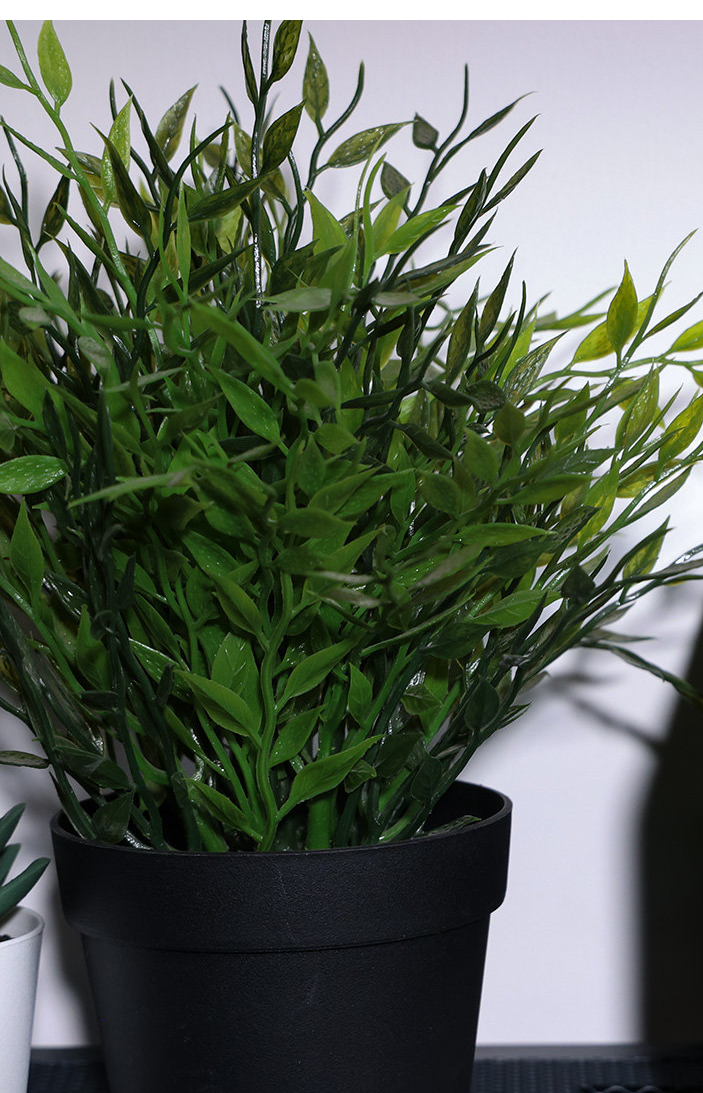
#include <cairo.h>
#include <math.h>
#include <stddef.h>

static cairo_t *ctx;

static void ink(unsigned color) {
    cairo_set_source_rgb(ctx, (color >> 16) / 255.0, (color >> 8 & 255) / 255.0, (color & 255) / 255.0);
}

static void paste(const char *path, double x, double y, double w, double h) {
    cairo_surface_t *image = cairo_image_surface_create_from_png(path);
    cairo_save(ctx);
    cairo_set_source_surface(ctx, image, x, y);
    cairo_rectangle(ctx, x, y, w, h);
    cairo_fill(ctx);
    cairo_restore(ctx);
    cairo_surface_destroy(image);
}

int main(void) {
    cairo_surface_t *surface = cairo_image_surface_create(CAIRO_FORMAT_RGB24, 703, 1093);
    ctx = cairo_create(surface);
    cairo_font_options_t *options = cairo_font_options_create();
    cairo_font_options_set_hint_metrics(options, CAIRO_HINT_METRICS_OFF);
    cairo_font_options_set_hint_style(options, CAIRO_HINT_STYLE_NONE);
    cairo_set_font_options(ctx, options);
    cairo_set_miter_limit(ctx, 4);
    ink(0xffffff);
    cairo_paint(ctx);
    paste("pic1.png", 0, 20, 703, 1073);
    cairo_surface_write_to_png(surface, "screenshot.png");
    cairo_font_options_destroy(options);
    cairo_destroy(ctx);
    cairo_surface_destroy(surface);
    return 0;
}
